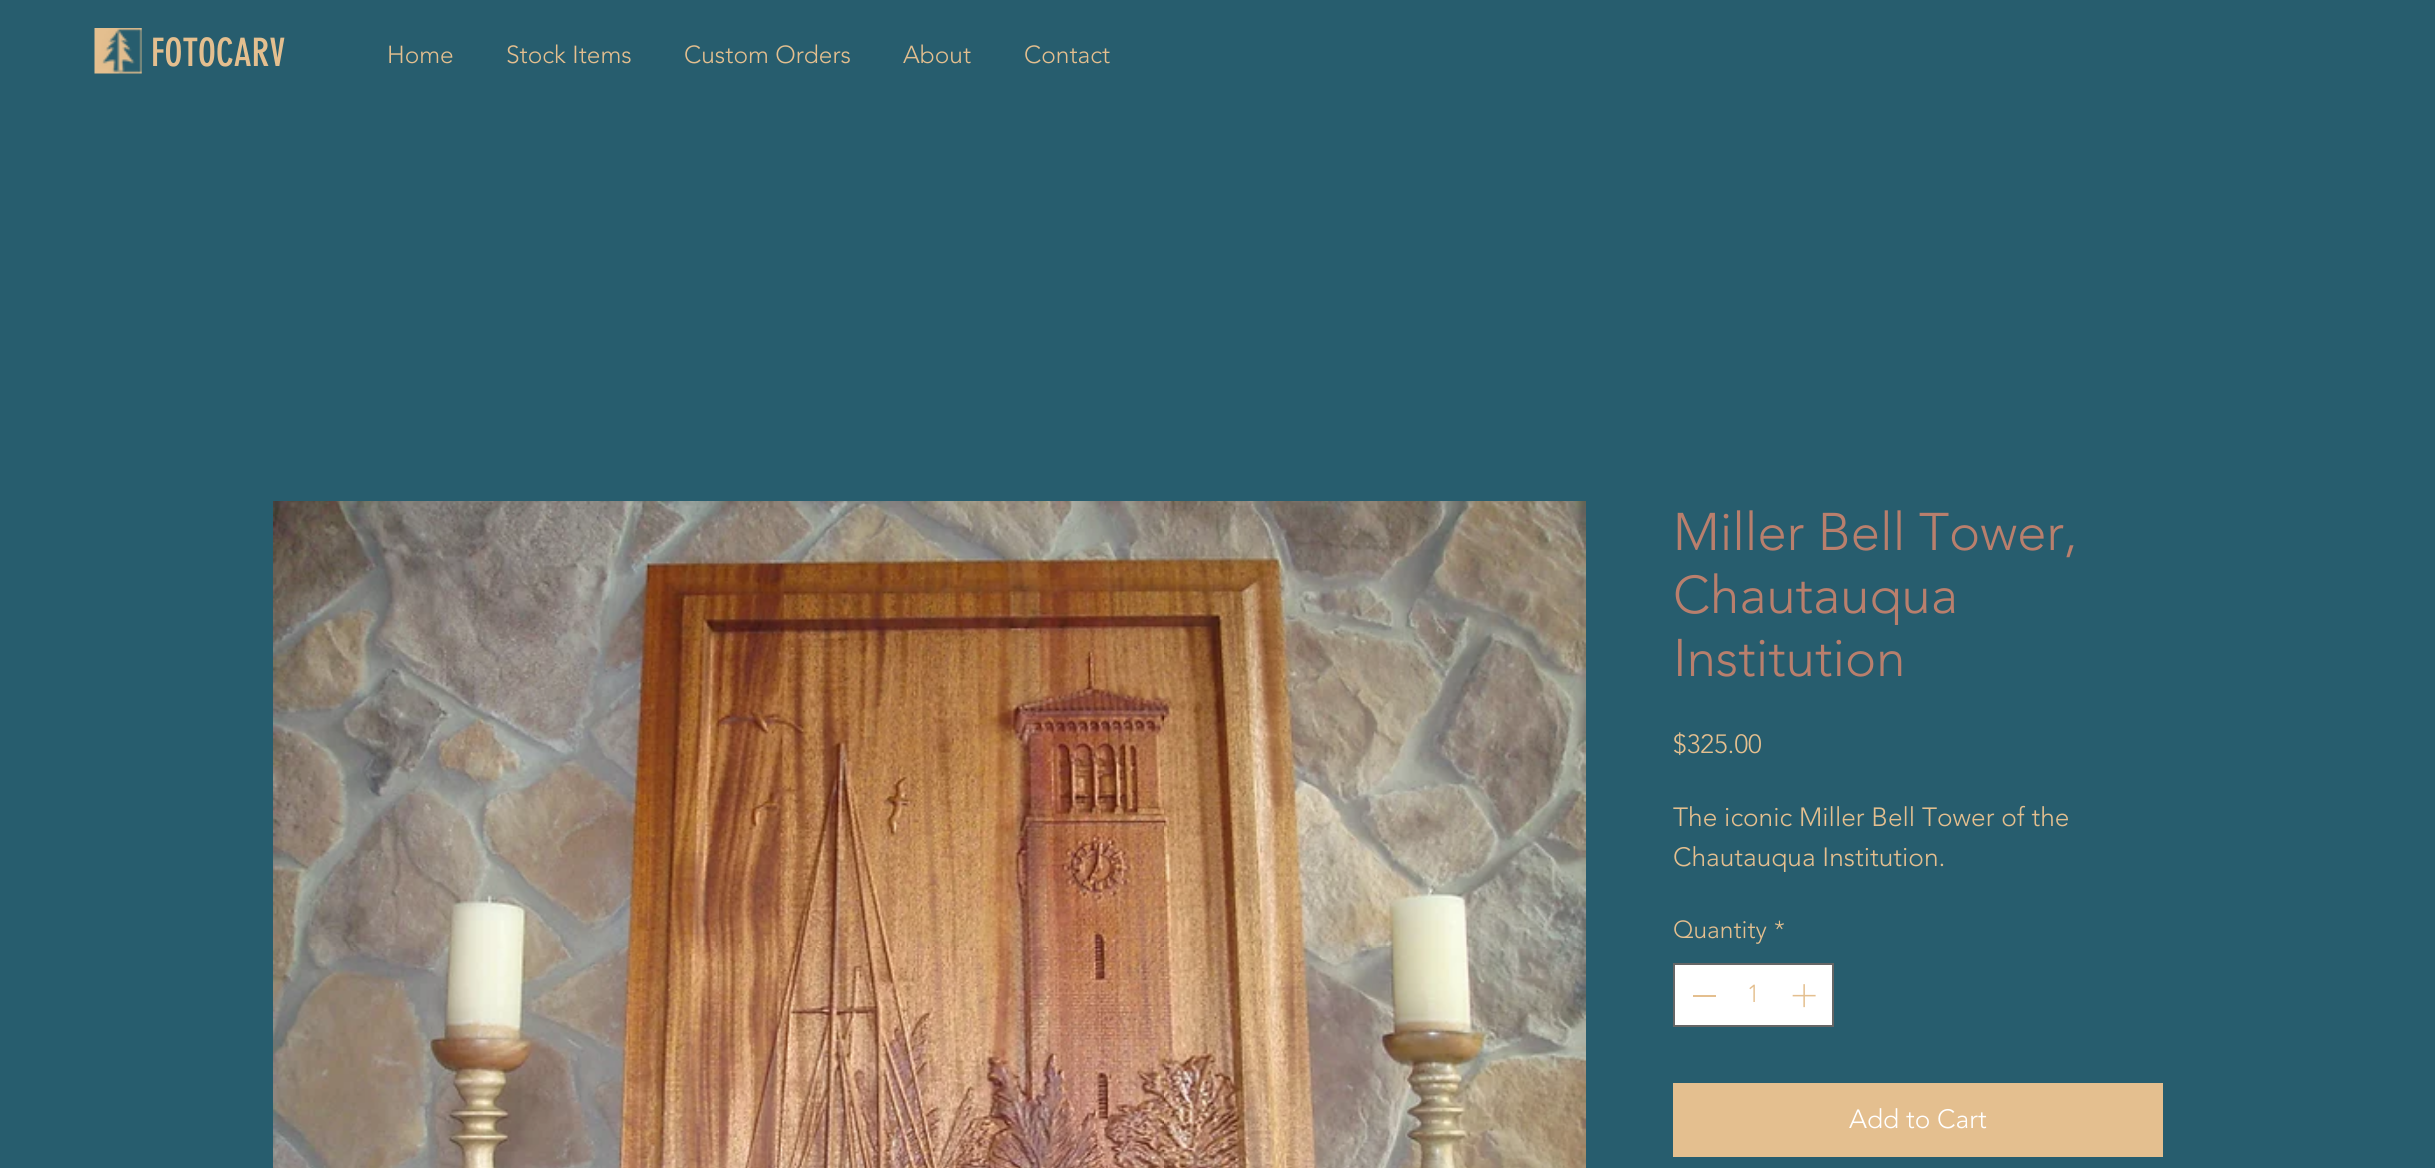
#include <cairo.h>
#include <math.h>
#include <stddef.h>

typedef struct { const char *family; double size; int italic, bold; unsigned color; } style_t;
static cairo_t *ctx;

static void ink(unsigned color) {
    cairo_set_source_rgb(ctx, (color >> 16) / 255.0, (color >> 8 & 255) / 255.0, (color & 255) / 255.0);
}

static void write(double x, double y, const char *s, const style_t *st) {
    cairo_select_font_face(ctx, st->family, st->italic ? CAIRO_FONT_SLANT_ITALIC : CAIRO_FONT_SLANT_NORMAL,
        st->bold ? CAIRO_FONT_WEIGHT_BOLD : CAIRO_FONT_WEIGHT_NORMAL);
    cairo_set_font_size(ctx, st->size);
    ink(st->color);
    cairo_move_to(ctx, x, y);
    cairo_show_text(ctx, s);
}

static void block(double x, double y, double w, double h, unsigned color) {
    ink(color);
    cairo_rectangle(ctx, x, y, w, h);
    cairo_fill(ctx);
}

static void paste(const char *path, double x, double y, double w, double h) {
    cairo_surface_t *image = cairo_image_surface_create_from_png(path);
    cairo_save(ctx);
    cairo_set_source_surface(ctx, image, x, y);
    cairo_rectangle(ctx, x, y, w, h);
    cairo_fill(ctx);
    cairo_restore(ctx);
    cairo_surface_destroy(image);
}

static const style_t s1 = {"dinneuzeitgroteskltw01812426", 38.5, 0, 0, 0xe4bf8f};
static const style_t s2 = {"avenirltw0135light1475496 Light", 24.5, 0, 0, 0xe4bf8f};
static const style_t s3 = {"avenirltw0135light1475496 Light", 52.5, 0, 0, 0xb97f6d};
static const style_t s4 = {"avenirltw0135light1475496 Light", 26.25, 0, 0, 0xe4bf8f};
static const style_t s5 = {"avenirltw0135light1475496 Light", 26.25, 0, 0, 0xffffff};

int main(void) {
    cairo_surface_t *surface = cairo_image_surface_create(CAIRO_FORMAT_RGB24, 2435, 1168);
    ctx = cairo_create(surface);
    cairo_font_options_t *options = cairo_font_options_create();
    cairo_font_options_set_hint_metrics(options, CAIRO_HINT_METRICS_OFF);
    cairo_font_options_set_hint_style(options, CAIRO_HINT_STYLE_NONE);
    cairo_set_font_options(ctx, options);
    cairo_set_miter_limit(ctx, 4);
    ink(0x275d6e);
    cairo_paint(ctx);
    paste("pic1.png", 94, 28, 48, 46);
    write(151, 66, "FOTOCARV", &s1);
    write(387, 63, "Home", &s2);
    write(506, 63, "Stock Items", &s2);
    write(684, 63, "Custom Orders", &s2);
    write(903, 63, "About", &s2);
    write(1024, 63, "Contact", &s2);
    paste("pic2.png", 273, 501, 1313, 667);
    write(1673, 550, "Miller Bell Tower,", &s3);
    write(1673, 613, "Chautauqua", &s3);
    write(1673, 676, "Institution", &s3);
    write(1673, 753, "$325.00", &s4);
    write(1673, 826, "The iconic Miller Bell Tower of the", &s4);
    write(1673, 866, "Chautauqua Institution.", &s4);
    write(1673, 938, "Quantity", &s2);
    write(1774, 938, "*", &s2);
    ink(0xffffff);
    cairo_rectangle(ctx, 1674, 964, 159, 62);
    cairo_fill_preserve(ctx);
    ink(0x666666);
    cairo_stroke(ctx);
    block(1693, 995, 23, 2, 0xe4bf8f);
    write(1747, 1002, "1", &s2);
    paste("pic3.png", 1792, 984, 24, 24);
    block(1673, 1083, 490, 74, 0xe4bf8f);
    write(1849, 1128, "Add to Cart", &s5);
    cairo_surface_write_to_png(surface, "screenshot.png");
    cairo_font_options_destroy(options);
    cairo_destroy(ctx);
    cairo_surface_destroy(surface);
    return 0;
}
